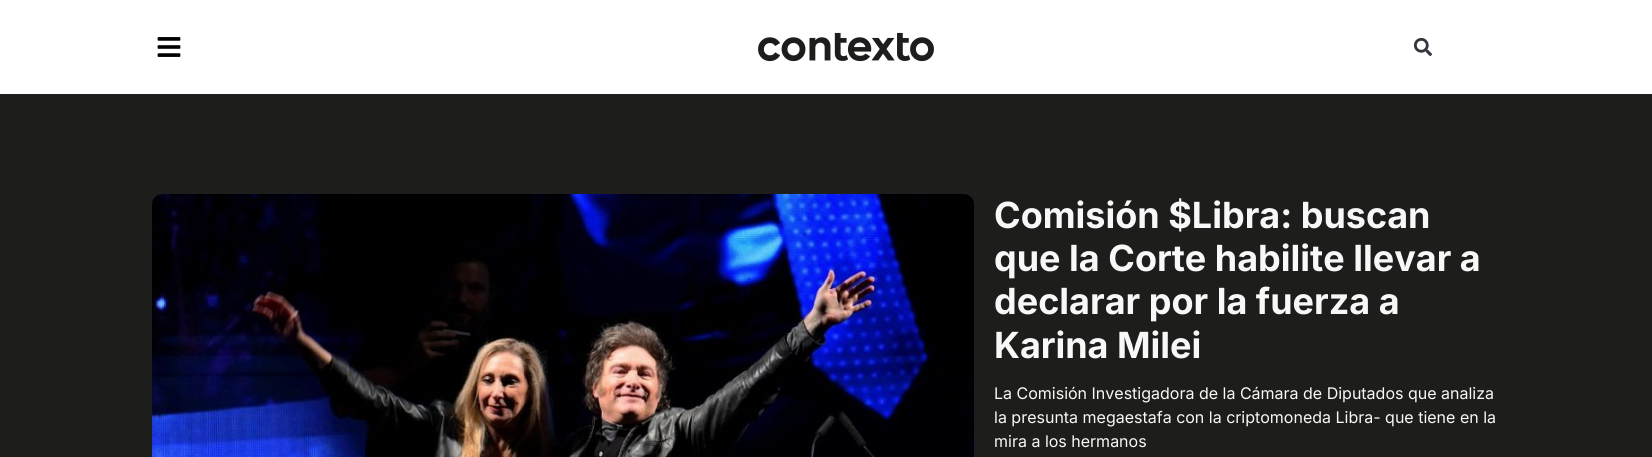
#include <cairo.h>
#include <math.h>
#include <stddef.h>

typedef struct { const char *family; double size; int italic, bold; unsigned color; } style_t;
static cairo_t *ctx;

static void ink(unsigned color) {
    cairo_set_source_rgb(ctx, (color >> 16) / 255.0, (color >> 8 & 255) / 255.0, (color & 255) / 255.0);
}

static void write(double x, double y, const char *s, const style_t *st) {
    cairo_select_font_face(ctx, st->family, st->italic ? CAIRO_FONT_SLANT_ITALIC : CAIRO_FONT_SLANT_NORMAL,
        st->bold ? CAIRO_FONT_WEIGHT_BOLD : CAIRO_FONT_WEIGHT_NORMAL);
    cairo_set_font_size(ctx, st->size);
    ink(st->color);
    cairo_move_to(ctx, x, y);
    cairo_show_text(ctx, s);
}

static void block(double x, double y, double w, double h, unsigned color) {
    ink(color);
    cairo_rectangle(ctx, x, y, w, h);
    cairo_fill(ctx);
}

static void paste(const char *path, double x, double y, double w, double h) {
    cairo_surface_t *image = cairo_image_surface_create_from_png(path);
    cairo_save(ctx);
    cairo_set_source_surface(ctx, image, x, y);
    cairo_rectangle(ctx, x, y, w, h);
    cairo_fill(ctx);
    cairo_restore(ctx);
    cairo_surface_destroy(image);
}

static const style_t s1 = {"Inter", 36, 0, 1, 0xf8f8f8};
static const style_t s2 = {"Inter", 16, 0, 0, 0xf8f8f8};

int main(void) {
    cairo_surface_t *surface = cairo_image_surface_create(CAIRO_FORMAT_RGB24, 1652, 457);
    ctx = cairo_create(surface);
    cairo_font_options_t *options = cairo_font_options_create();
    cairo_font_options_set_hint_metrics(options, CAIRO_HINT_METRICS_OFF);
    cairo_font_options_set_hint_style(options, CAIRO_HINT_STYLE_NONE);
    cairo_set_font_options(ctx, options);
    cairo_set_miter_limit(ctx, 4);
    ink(0xffffff);
    cairo_paint(ctx);
    paste("pic1.png", 157, 37, 24, 20);
    paste("pic2.png", 758, 32, 176, 30);
    paste("pic3.png", 1414, 38, 18, 18);
    block(0, 94, 1652, 363, 0x1d1d1b);
    paste("pic4.png", 152, 194, 822, 263);
    write(994, 228, "Comisión $Libra: buscan", &s1);
    write(994, 271, "que la Corte habilite llevar a", &s1);
    write(994, 314, "declarar por la fuerza a", &s1);
    write(994, 358, "Karina Milei", &s1);
    write(994, 399, "La Comisión Investigadora de la Cámara de Diputados que analiza", &s2);
    write(994, 423, "la presunta megaestafa con la criptomoneda Libra- que tiene en la", &s2);
    write(994, 447, "mira a los hermanos", &s2);
    cairo_surface_write_to_png(surface, "screenshot.png");
    cairo_font_options_destroy(options);
    cairo_destroy(ctx);
    cairo_surface_destroy(surface);
    return 0;
}
